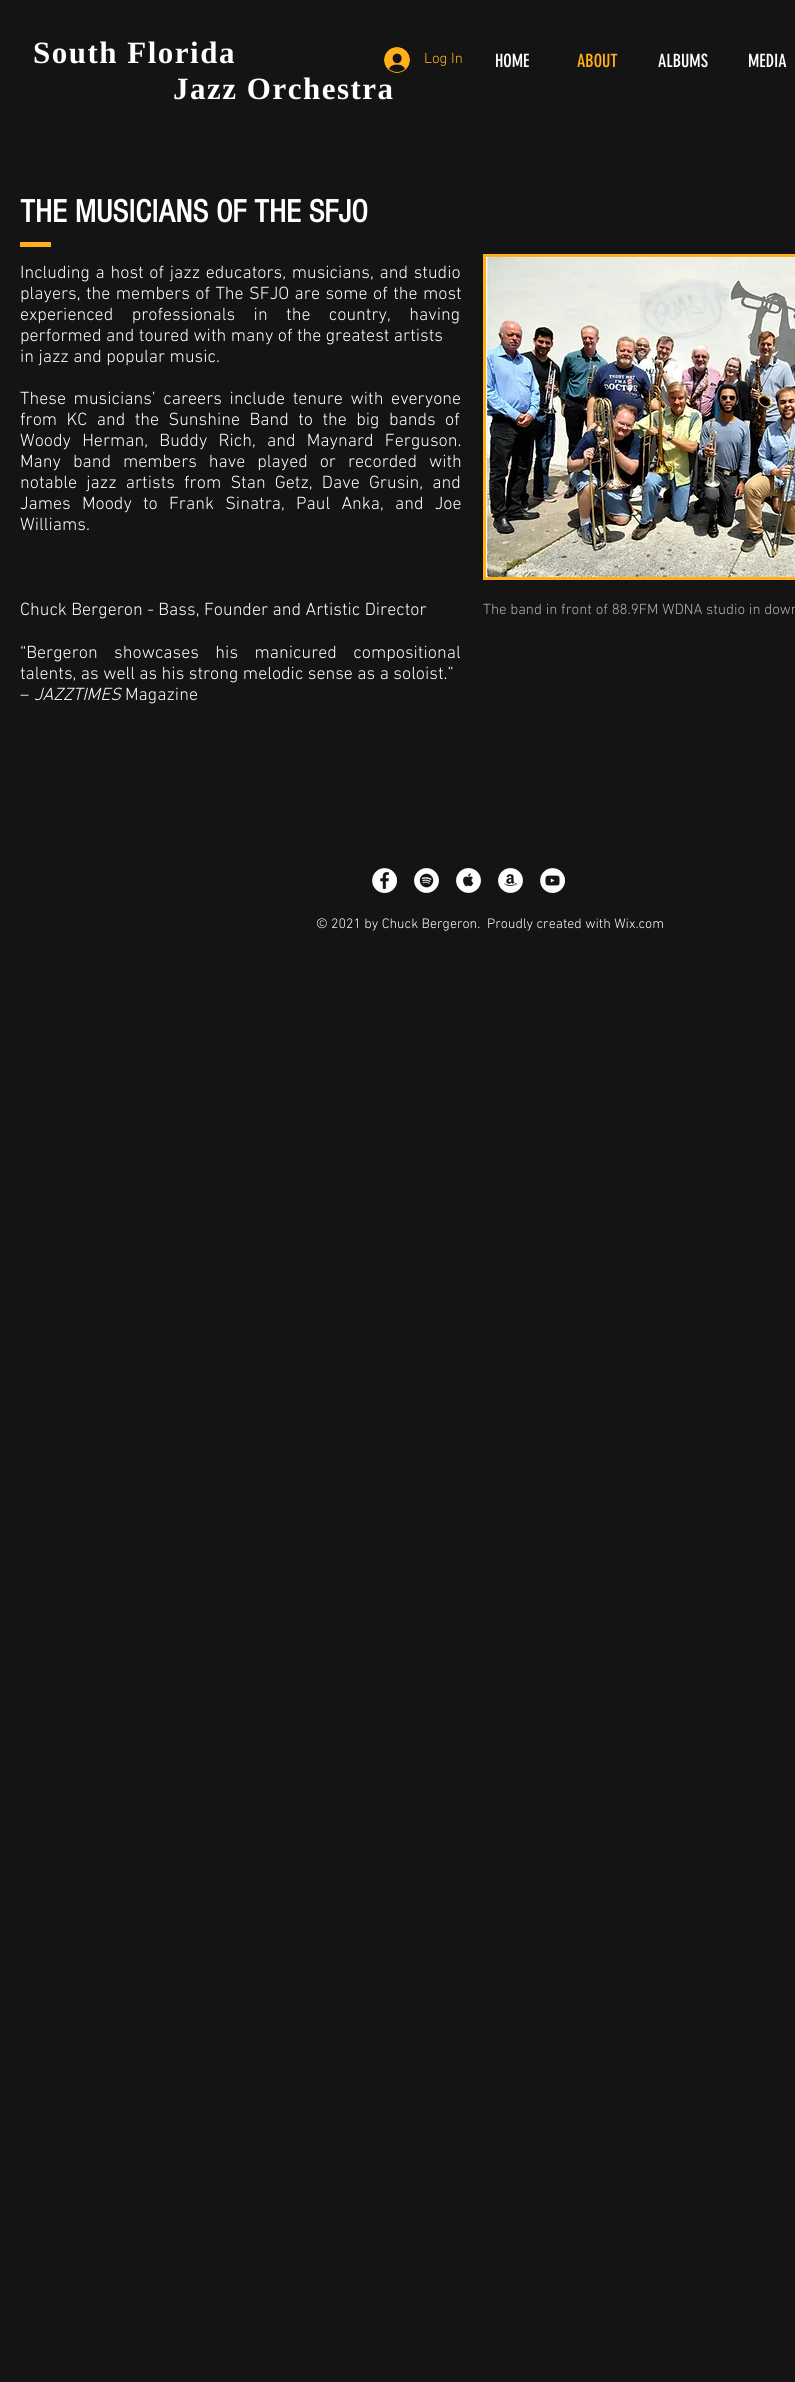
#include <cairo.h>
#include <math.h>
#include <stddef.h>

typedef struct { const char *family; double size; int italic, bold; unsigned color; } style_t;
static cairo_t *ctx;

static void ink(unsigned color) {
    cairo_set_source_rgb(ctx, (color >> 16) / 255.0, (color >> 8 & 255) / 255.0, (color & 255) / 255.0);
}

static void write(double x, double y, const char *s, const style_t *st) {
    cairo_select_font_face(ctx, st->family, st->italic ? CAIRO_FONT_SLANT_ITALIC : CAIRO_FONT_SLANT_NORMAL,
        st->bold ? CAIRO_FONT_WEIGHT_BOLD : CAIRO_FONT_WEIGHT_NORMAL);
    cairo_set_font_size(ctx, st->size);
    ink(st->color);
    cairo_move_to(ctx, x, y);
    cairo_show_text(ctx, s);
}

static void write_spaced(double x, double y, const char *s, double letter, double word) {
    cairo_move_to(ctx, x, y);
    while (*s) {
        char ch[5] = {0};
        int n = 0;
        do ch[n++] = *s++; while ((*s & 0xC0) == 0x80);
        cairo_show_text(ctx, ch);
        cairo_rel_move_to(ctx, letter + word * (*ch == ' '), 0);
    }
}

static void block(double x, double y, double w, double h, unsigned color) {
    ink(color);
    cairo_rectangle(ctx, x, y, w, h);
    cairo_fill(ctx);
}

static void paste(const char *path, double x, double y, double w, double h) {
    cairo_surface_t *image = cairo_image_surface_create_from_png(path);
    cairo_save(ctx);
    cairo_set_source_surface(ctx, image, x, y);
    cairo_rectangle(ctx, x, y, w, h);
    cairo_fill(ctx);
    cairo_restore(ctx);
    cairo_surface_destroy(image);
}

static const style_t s1 = {"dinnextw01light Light", 15, 0, 0, 0xffaf19};
static const style_t s2 = {"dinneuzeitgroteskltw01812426", 18, 0, 0, 0xffffff};
static const style_t s3 = {"dinneuzeitgroteskltw01812426", 18, 0, 0, 0xffaf19};
static const style_t s4 = {"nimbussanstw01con", 33, 0, 1, 0xffffff};
static const style_t s5 = {"dinnextw01light Light", 18, 0, 0, 0xffffff};
static const style_t s6 = {"dinnextw01light Light", 18, 1, 0, 0xffffff};
static const style_t s7 = {"dinnextw01light Light", 15, 0, 0, 0xb1b1b1};
static const style_t s8 = {"dinnextw01light Light", 14, 0, 0, 0xffffff};

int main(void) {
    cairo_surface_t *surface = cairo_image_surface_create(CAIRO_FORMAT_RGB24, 795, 2382);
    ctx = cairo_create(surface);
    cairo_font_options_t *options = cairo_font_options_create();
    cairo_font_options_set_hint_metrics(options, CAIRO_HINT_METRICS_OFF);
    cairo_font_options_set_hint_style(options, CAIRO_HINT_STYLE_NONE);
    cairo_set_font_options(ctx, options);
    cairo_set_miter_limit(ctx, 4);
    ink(0x141414);
    cairo_paint(ctx);
    cairo_select_font_face(ctx, "Liberation Serif", CAIRO_FONT_SLANT_NORMAL, CAIRO_FONT_WEIGHT_BOLD);
    cairo_set_font_size(ctx, 31);
    ink(0xffffff);
    write_spaced(33, 63, "South Florida", 1.5, 0);
    write_spaced(173, 99, "Jazz Orchestra", 1.5, 0);
    paste("pic1.png", 384, 47, 26, 26);
    write(424, 63, "Log In", &s1);
    write(495, 67, "HOME", &s2);
    write(577, 67, "ABOUT", &s3);
    write(658, 67, "ALBUMS", &s2);
    write(748, 67, "MEDIA", &s2);
    write(20, 222, "THE MUSICIANS OF THE SFJO", &s4);
    block(20, 242, 31, 5, 0xffaf19);
    cairo_select_font_face(ctx, "dinnextw01light Light", CAIRO_FONT_SLANT_NORMAL, CAIRO_FONT_WEIGHT_NORMAL);
    cairo_set_font_size(ctx, 18);
    ink(0xffffff);
    write_spaced(20, 278, "Including a host of jazz educators, musicians, and studio", 0, 1.25);
    write_spaced(20, 299, "players, the members of The SFJO are some of the most", 0, 1);
    write_spaced(20, 320, "experienced professionals in the country, having", 0, 14);
    write(20, 341, "performed and toured with many of the greatest artists", &s5);
    write(20, 362, "in jazz and popular music.", &s5);
    write_spaced(20, 404, "These musicians’ careers include tenure with everyone", 0, 3.25);
    write_spaced(20, 425, "from KC and the Sunshine Band to the big bands of", 0, 5);
    write_spaced(20, 446, "Woody Herman, Buddy Rich, and Maynard Ferguson.", 0, 6.75);
    write_spaced(20, 467, "Many band members have played or recorded with", 0, 7.5);
    write_spaced(20, 488, "notable jazz artists from Stan Getz, Dave Grusin, and", 0, 4.75);
    write_spaced(20, 509, "James Moody to Frank Sinatra, Paul Anka, and Joe", 0, 6.75);
    write(20, 530, "Williams.", &s5);
    write(20, 615, "Chuck Bergeron - Bass, Founder and Artistic Director", &s5);
    write_spaced(20, 658, "“Bergeron showcases his manicured compositional", 0, 12);
    write(20, 679, "talents, as well as his strong melodic sense as a soloist.”", &s5);
    write(20, 700, "–", &s5);
    write(34, 700, "JAZZTIMES", &s6);
    write(125, 700, "Magazine", &s5);
    block(483, 254, 312, 326, 0xffaf19);
    paste("pic2.png", 486, 257, 309, 320);
    write(483, 614, "The band in front of 88.9FM WDNA studio in down", &s7);
    paste("pic3.png", 372, 868, 25, 25);
    paste("pic4.png", 414, 868, 25, 25);
    paste("pic5.png", 456, 868, 25, 25);
    paste("pic6.png", 498, 868, 25, 25);
    paste("pic7.png", 540, 868, 25, 25);
    write(316, 928, "© 2021 by Chuck Bergeron.  Proudly created with Wix.com", &s8);
    cairo_surface_write_to_png(surface, "screenshot.png");
    cairo_font_options_destroy(options);
    cairo_destroy(ctx);
    cairo_surface_destroy(surface);
    return 0;
}
